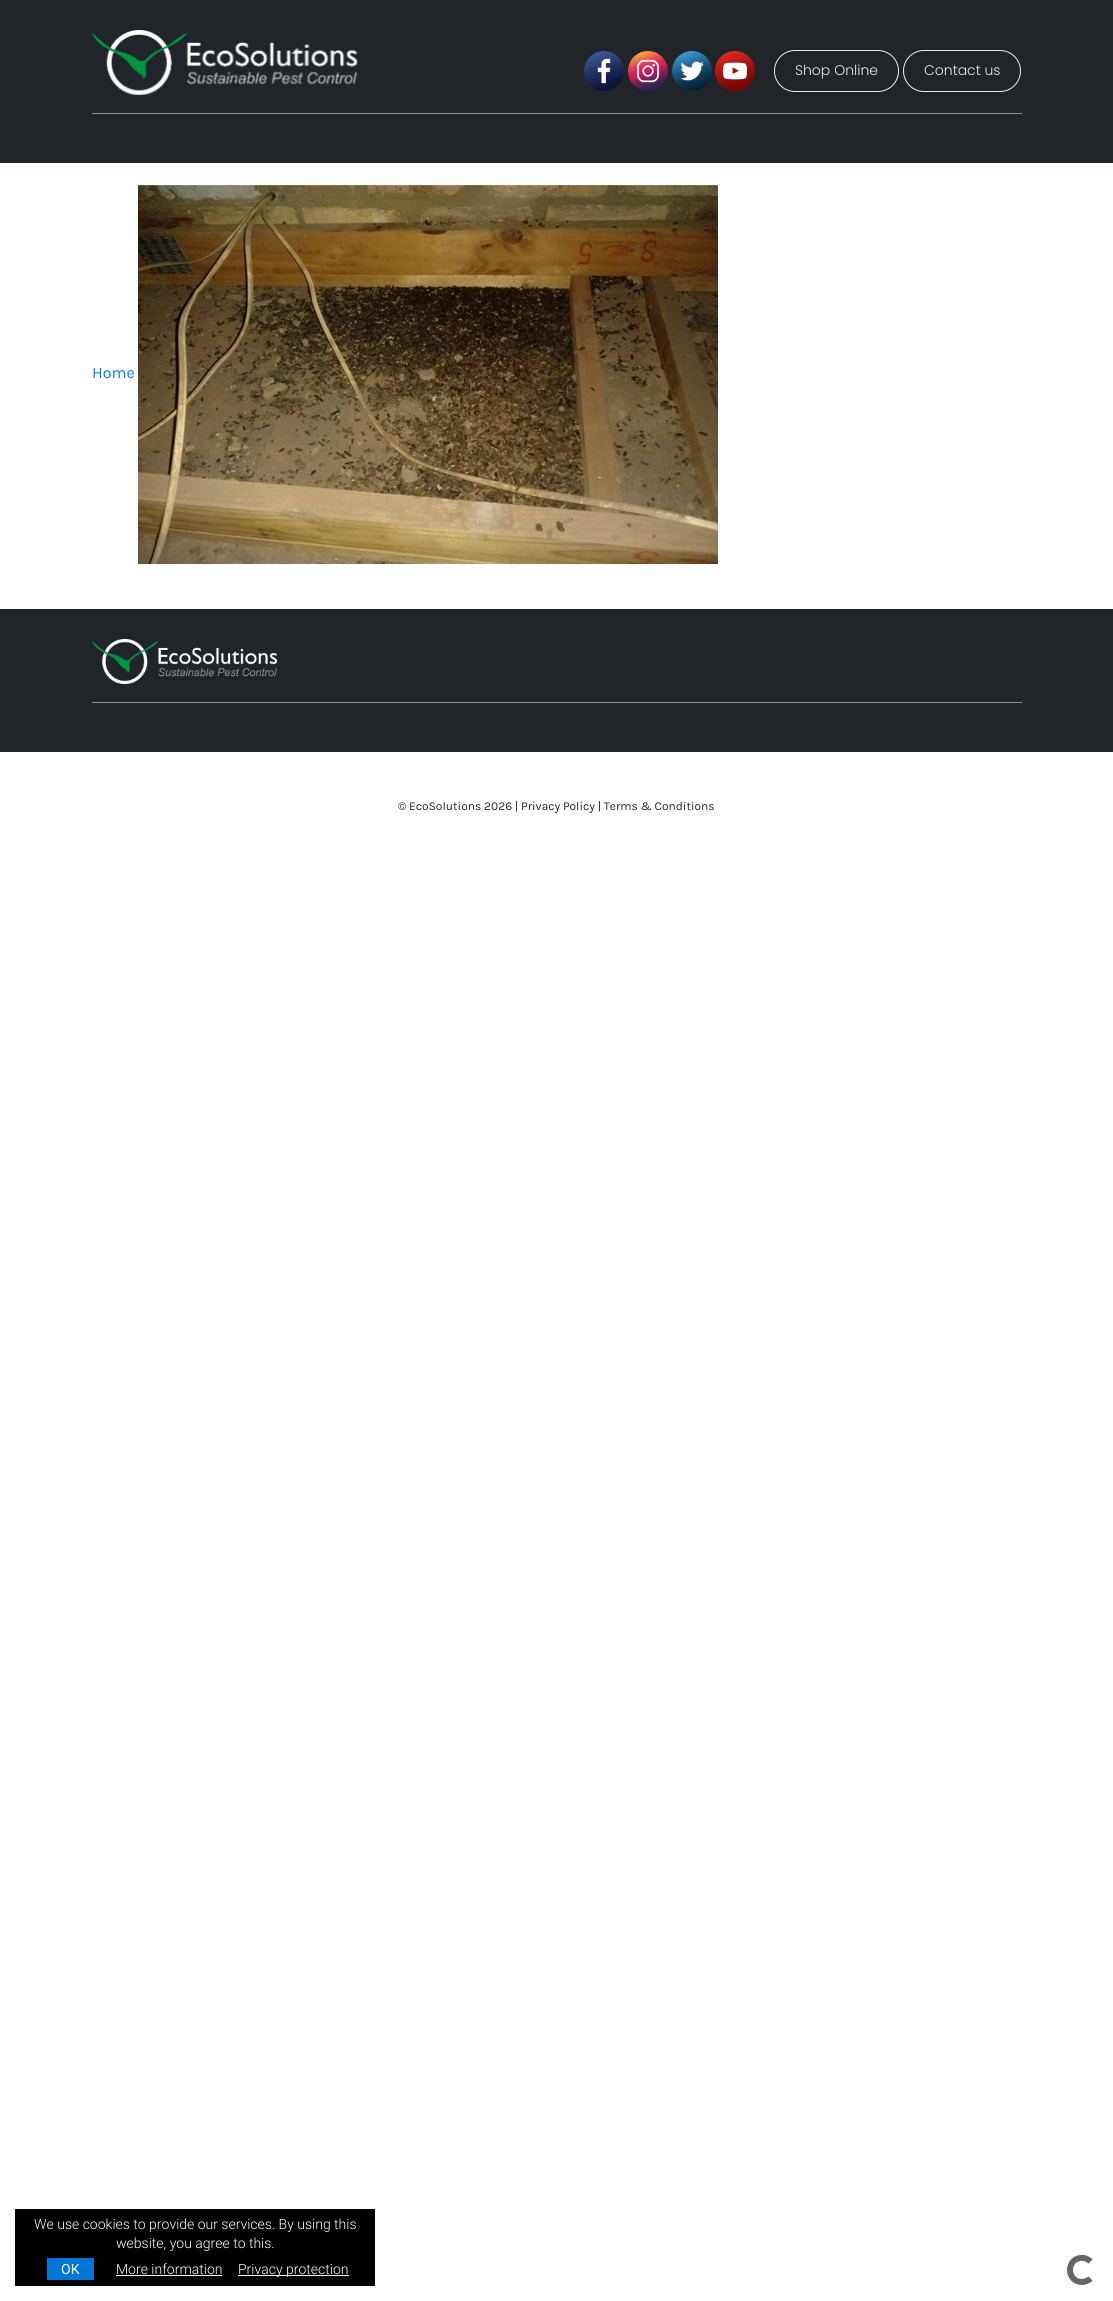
#include <cairo.h>
#include <math.h>
#include <stddef.h>

typedef struct { const char *family; double size; int italic, bold; unsigned color; } style_t;
static cairo_t *ctx;

static void ink(unsigned color) {
    cairo_set_source_rgb(ctx, (color >> 16) / 255.0, (color >> 8 & 255) / 255.0, (color & 255) / 255.0);
}

static void write(double x, double y, const char *s, const style_t *st) {
    cairo_select_font_face(ctx, st->family, st->italic ? CAIRO_FONT_SLANT_ITALIC : CAIRO_FONT_SLANT_NORMAL,
        st->bold ? CAIRO_FONT_WEIGHT_BOLD : CAIRO_FONT_WEIGHT_NORMAL);
    cairo_set_font_size(ctx, st->size);
    ink(st->color);
    cairo_move_to(ctx, x, y);
    cairo_show_text(ctx, s);
}

static void block(double x, double y, double w, double h, unsigned color) {
    ink(color);
    cairo_rectangle(ctx, x, y, w, h);
    cairo_fill(ctx);
}

static void round_path(double x, double y, double w, double h, double r) {
    cairo_new_sub_path(ctx);
    cairo_arc(ctx, x + w - r, y + h - r, r, 0, M_PI / 2);
    cairo_arc(ctx, x + r, y + h - r, r, M_PI / 2, M_PI);
    cairo_arc(ctx, x + r, y + r, r, M_PI, 1.5 * M_PI);
    cairo_arc(ctx, x + w - r, y + r, r, 1.5 * M_PI, 2 * M_PI);
    cairo_close_path(ctx);
}

static void paste(const char *path, double x, double y, double w, double h) {
    cairo_surface_t *image = cairo_image_surface_create_from_png(path);
    cairo_save(ctx);
    cairo_set_source_surface(ctx, image, x, y);
    cairo_rectangle(ctx, x, y, w, h);
    cairo_fill(ctx);
    cairo_restore(ctx);
    cairo_surface_destroy(image);
}

static const style_t s1 = {"Poppins Light", 14, 0, 0, 0xe9ecef};
static const style_t s2 = {"Karla", 16, 0, 0, 0x007bff};
static const style_t s3 = {"Karla", 12, 0, 0, 0x212529};
static const style_t s4 = {"Roboto Light", 14, 0, 0, 0xffffff};
static const style_t s5 = {"Roboto", 14, 0, 0, 0xffffff};

int main(void) {
    cairo_surface_t *surface = cairo_image_surface_create(CAIRO_FORMAT_RGB24, 1113, 2301);
    ctx = cairo_create(surface);
    cairo_font_options_t *options = cairo_font_options_create();
    cairo_font_options_set_hint_metrics(options, CAIRO_HINT_METRICS_OFF);
    cairo_font_options_set_hint_style(options, CAIRO_HINT_STYLE_NONE);
    cairo_set_font_options(ctx, options);
    cairo_set_miter_limit(ctx, 4);
    ink(0xffffff);
    cairo_paint(ctx);
    block(0, 0, 1113, 163, 0x212529);
    paste("pic1.png", 92, 30, 266, 65);
    paste("pic2.png", 584, 51, 40, 40);
    paste("pic3.png", 628, 51, 40, 40);
    paste("pic4.png", 672, 51, 40, 40);
    paste("pic5.png", 715, 51, 40, 40);
    round_path(774.5, 50.5, 124, 41, 20.5);
    ink(0xe9ecef);
    cairo_set_line_width(ctx, 1);
    cairo_stroke(ctx);
    write(795, 75, "Shop Online", &s1);
    round_path(903.5, 50.5, 117, 41, 20.5);
    cairo_stroke(ctx);
    write(924, 75, "Contact us", &s1);
    block(92, 113, 930, 1, 0x909294);
    write(92, 378, "Home", &s2);
    paste("pic6.png", 138, 185, 580, 379);
    block(0, 609, 1113, 143, 0x212529);
    paste("pic7.png", 92, 639, 185, 45);
    block(92, 702, 930, 1, 0x909294);
    write(398, 810, "© EcoSolutions 2026 | Privacy Policy | Terms & Conditions", &s3);
    block(15, 2209, 360, 77, 0x000000);
    write(34, 2229, "We use cookies to provide our services. By using this", &s4);
    write(116, 2248, "website, you agree to this.", &s4);
    block(47, 2258, 47, 22, 0x0275d8);
    write(61, 2274, "OK", &s5);
    write(116, 2274, "More information", &s4);
    block(116, 2275, 106, 1, 0xffffff);
    block(238, 2275, 111, 1, 0xffffff);
    write(238, 2274, "Privacy protection", &s4);
    cairo_new_path(ctx);
    cairo_move_to(ctx, 1090.5, 2278.5);
    cairo_curve_to(ctx, 1088.5, 2280.5, 1085, 2282, 1082, 2282);
    cairo_curve_to(ctx, 1067.5, 2282, 1065.5, 2261, 1079.5, 2258);
    cairo_curve_to(ctx, 1083.5, 2257.5, 1087.5, 2258.5, 1090.5, 2261.5);
    ink(0x646669);
    cairo_set_line_width(ctx, 6);
    cairo_stroke(ctx);
    cairo_surface_write_to_png(surface, "screenshot.png");
    cairo_font_options_destroy(options);
    cairo_destroy(ctx);
    cairo_surface_destroy(surface);
    return 0;
}
